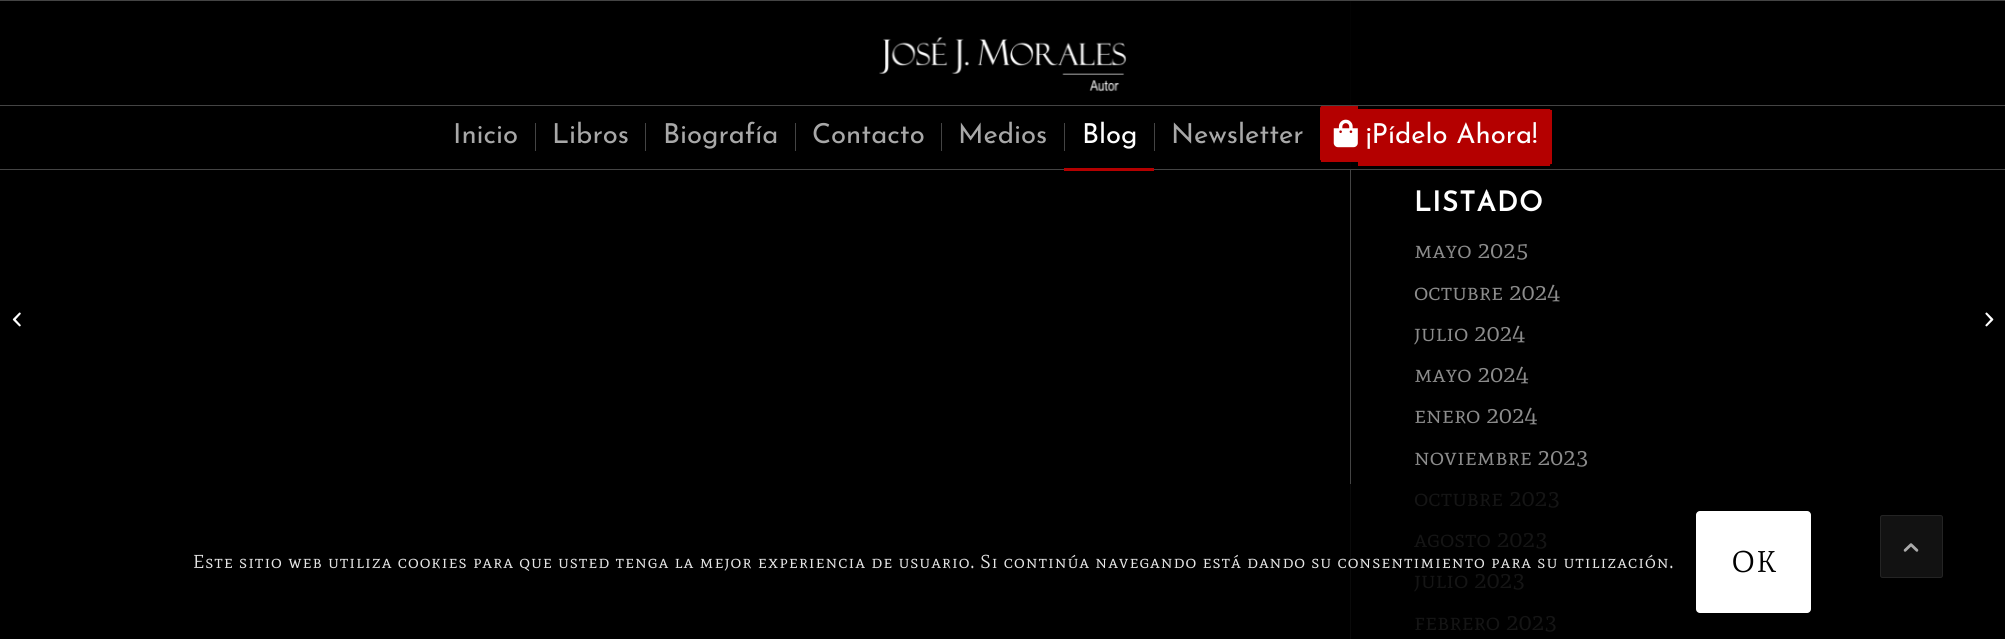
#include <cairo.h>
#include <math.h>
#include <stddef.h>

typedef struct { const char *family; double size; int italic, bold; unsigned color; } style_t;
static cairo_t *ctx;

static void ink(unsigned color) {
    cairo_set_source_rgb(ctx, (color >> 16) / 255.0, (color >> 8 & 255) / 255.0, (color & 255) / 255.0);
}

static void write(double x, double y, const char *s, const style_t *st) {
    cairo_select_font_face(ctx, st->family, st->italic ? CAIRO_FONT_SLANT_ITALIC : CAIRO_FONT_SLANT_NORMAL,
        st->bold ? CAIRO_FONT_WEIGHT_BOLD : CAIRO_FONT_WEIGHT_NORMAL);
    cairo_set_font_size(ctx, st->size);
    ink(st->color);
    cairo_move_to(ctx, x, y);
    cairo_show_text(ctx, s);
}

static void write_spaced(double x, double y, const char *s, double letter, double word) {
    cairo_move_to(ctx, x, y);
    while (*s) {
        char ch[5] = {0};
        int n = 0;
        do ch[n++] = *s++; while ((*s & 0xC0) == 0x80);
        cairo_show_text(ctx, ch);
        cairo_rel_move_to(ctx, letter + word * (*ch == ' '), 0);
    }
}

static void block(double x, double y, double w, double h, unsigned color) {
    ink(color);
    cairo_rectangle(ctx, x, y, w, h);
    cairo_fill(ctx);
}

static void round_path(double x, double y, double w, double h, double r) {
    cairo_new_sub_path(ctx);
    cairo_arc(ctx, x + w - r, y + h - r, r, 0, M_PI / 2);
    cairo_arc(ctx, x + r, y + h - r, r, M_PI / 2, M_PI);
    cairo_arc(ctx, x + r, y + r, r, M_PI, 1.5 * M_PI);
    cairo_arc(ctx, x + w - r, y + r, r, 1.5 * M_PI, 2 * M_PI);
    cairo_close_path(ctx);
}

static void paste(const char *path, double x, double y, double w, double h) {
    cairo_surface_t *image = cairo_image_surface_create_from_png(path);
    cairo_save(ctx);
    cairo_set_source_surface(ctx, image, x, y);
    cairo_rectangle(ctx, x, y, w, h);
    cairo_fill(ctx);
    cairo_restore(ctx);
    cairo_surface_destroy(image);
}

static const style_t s1 = {"Josefin Sans Thin", 27.5, 0, 0, 0xa8a8a8};
static const style_t s2 = {"Josefin Sans Thin", 27.5, 0, 0, 0xffffff};
static const style_t s3 = {"Mate SC", 25, 0, 0, 0x8c8c8c};
static const style_t s4 = {"Mate SC", 25, 0, 0, 0x151515};

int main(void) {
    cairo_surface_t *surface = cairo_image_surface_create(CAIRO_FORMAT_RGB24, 2005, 639);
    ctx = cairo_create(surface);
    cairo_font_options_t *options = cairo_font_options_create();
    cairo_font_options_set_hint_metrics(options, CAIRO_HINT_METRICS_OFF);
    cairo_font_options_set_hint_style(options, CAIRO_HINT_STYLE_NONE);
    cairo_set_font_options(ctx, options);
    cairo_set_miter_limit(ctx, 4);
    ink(0x000000);
    cairo_paint(ctx);
    block(1350, 0, 1, 170, 0x030303);
    block(0, 0, 2005, 1, 0x444444);
    block(0, 169, 2005, 1, 0x444444);
    paste("pic1.png", 879, 37, 248, 55);
    block(0, 105, 2005, 1, 0x444444);
    write(453, 143, "Inicio", &s1);
    write(552, 143, "Libros", &s1);
    block(535, 123, 1, 28, 0x444444);
    write(663, 143, "Biografía", &s1);
    block(645, 123, 1, 28, 0x444444);
    write(812, 143, "Contacto", &s1);
    block(795, 123, 1, 28, 0x444444);
    write(958, 143, "Medios", &s1);
    block(941, 123, 1, 28, 0x444444);
    write(1082, 143, "Blog", &s2);
    block(1064, 123, 1, 28, 0x444444);
    block(1064, 168, 90, 3, 0xb40000);
    write(1171, 143, "Newsletter", &s1);
    block(1154, 123, 1, 28, 0x444444);
    ink(0xb40000);
    cairo_new_path(ctx);
    cairo_move_to(ctx, 1322.5, 106);
    cairo_line_to(ctx, 1358, 106);
    cairo_line_to(ctx, 1358, 161);
    cairo_line_to(ctx, 1322.5, 161);
    cairo_curve_to(ctx, 1321, 161, 1320, 160, 1320, 158.5);
    cairo_line_to(ctx, 1320, 108.5);
    cairo_curve_to(ctx, 1320, 107, 1321, 106, 1322.5, 106);
    cairo_close_path(ctx);
    cairo_fill(ctx);
    block(1321, 106, 2, 1, 0xb40000);
    block(1321, 160, 37, 2, 0xb40000);
    block(1320, 108, 1, 52, 0xb40000);
    cairo_new_path(ctx);
    cairo_move_to(ctx, 1358, 109);
    cairo_line_to(ctx, 1548.5, 109);
    cairo_curve_to(ctx, 1550, 109, 1551, 110, 1551, 111.5);
    cairo_line_to(ctx, 1551, 162.5);
    cairo_curve_to(ctx, 1551, 164, 1550, 165, 1548.5, 165);
    cairo_line_to(ctx, 1358, 165);
    cairo_close_path(ctx);
    cairo_fill(ctx);
    block(1548, 109, 2, 1, 0xb40000);
    block(1550, 110, 2, 54, 0xb40000);
    block(1358, 164, 192, 2, 0xb40000);
    paste("pic2.png", 1333, 119, 25, 29);
    write(1366, 143, "¡Pídelo Ahora!", &s2);
    paste("pic3.png", 12, 312, 9, 15);
    block(1350, 170, 1, 314, 0x444444);
    block(1350, 484, 1, 155, 0x0a0a0a);
    cairo_select_font_face(ctx, "Josefin Sans", CAIRO_FONT_SLANT_NORMAL, CAIRO_FONT_WEIGHT_BOLD);
    ink(0xffffff);
    write_spaced(1414, 211, "LISTADO", 1.25, 0);
    write(1414, 258, "mayo 2025", &s3);
    write(1414, 300, "octubre 2024", &s3);
    write(1414, 341, "julio 2024", &s3);
    write(1414, 382, "mayo 2024", &s3);
    write(1414, 423, "enero 2024", &s3);
    write(1414, 465, "noviembre 2023", &s3);
    write(1414, 506, "octubre 2023", &s4);
    write(1414, 547, "agosto 2023", &s4);
    write(1414, 588, "julio 2023", &s4);
    write(1414, 630, "febrero 2023", &s4);
    paste("pic4.png", 1985, 312, 9, 15);
    ink(0x121212);
    round_path(1880.5, 515.5, 62, 62, 2);
    cairo_fill_preserve(ctx);
    ink(0x242424);
    cairo_set_line_width(ctx, 1);
    cairo_stroke(ctx);
    paste("pic5.png", 1903, 543, 16, 9);
    cairo_set_font_size(ctx, 18.75);
    ink(0xe6e6e6);
    write_spaced(193, 568, "Este sitio web utiliza cookies para que usted tenga la mejor experiencia de usuario. Si continúa navegando está dando su consentimiento para su utilización.", 0.94, 0);
    ink(0xffffff);
    round_path(1696, 511, 115, 102, 4);
    cairo_fill(ctx);
    cairo_set_font_size(ctx, 30);
    ink(0x000000);
    write_spaced(1732, 572, "OK", 2, 0);
    cairo_surface_write_to_png(surface, "screenshot.png");
    cairo_font_options_destroy(options);
    cairo_destroy(ctx);
    cairo_surface_destroy(surface);
    return 0;
}
